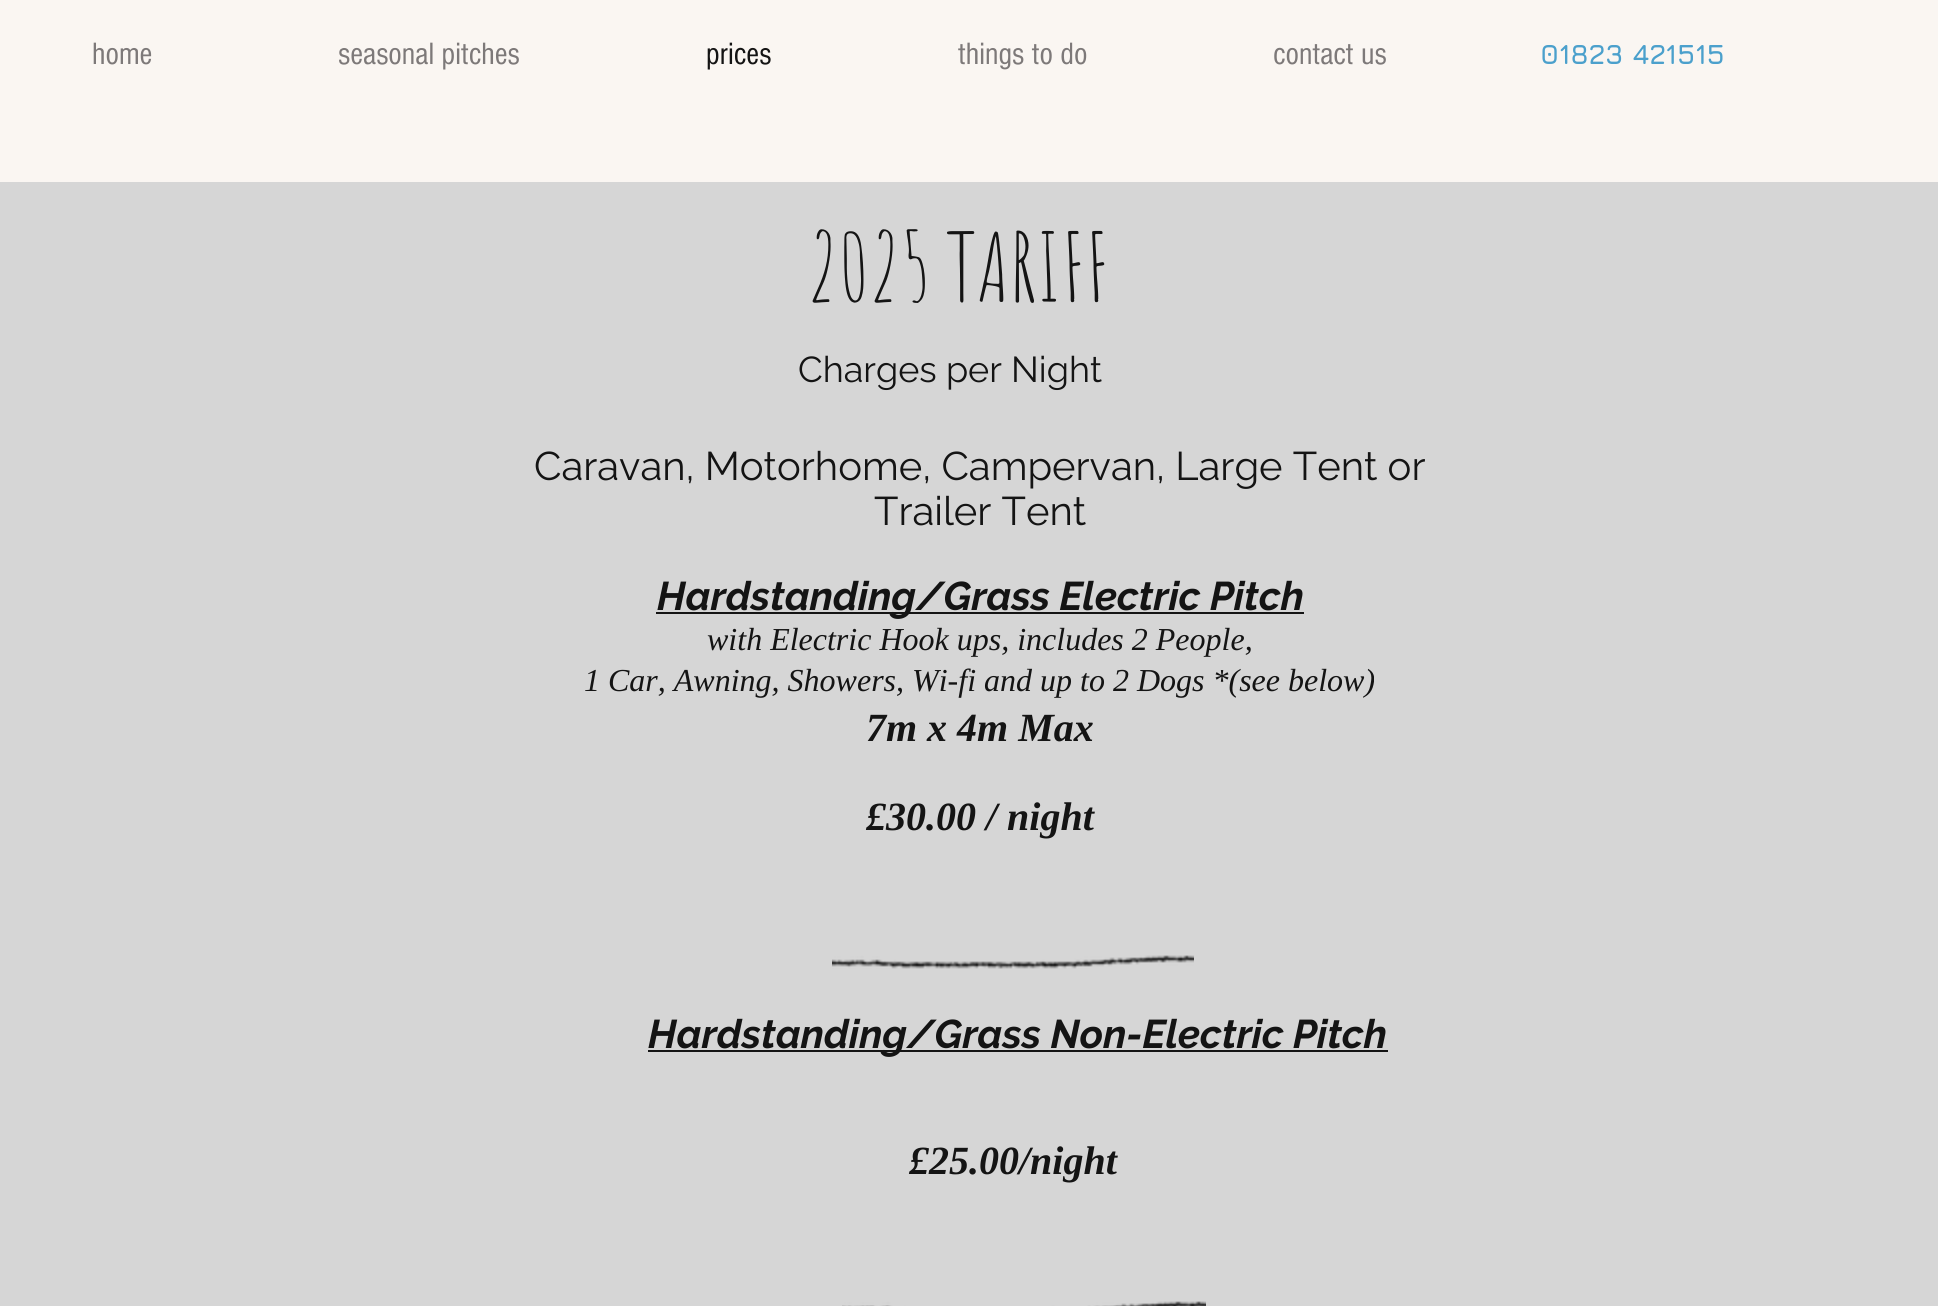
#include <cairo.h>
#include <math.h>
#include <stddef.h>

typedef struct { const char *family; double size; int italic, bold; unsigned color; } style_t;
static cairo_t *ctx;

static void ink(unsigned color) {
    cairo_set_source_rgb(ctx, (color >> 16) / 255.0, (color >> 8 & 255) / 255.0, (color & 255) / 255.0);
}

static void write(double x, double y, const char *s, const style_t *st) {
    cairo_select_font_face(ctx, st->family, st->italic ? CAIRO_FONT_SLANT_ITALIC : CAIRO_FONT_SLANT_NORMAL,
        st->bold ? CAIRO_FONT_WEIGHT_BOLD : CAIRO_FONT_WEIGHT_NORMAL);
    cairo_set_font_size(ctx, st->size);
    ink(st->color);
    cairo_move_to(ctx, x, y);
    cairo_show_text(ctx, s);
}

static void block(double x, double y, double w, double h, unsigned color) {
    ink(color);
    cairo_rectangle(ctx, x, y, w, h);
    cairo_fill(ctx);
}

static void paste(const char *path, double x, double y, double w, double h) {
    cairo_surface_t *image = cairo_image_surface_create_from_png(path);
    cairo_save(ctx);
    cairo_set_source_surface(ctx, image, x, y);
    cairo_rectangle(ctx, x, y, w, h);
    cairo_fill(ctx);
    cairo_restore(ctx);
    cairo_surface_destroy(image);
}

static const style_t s1 = {"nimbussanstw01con", 32, 0, 0, 0x7d7979};
static const style_t s2 = {"nimbussanstw01con", 32, 0, 0, 0x141414};
static const style_t s3 = {"Jura", 28, 0, 1, 0x4ba0cc};
static const style_t s4 = {"Amatic SC", 94, 0, 0, 0x141414};
static const style_t s5 = {"Raleway", 36, 0, 0, 0x141414};
static const style_t s6 = {"Raleway", 40, 0, 0, 0x141414};
static const style_t s7 = {"Raleway", 40, 1, 1, 0x141414};
static const style_t s8 = {"Liberation Serif", 32, 1, 0, 0x141414};
static const style_t s9 = {"Liberation Serif", 40, 1, 1, 0x141414};

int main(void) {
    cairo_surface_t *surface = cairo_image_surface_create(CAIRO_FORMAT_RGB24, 1938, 1306);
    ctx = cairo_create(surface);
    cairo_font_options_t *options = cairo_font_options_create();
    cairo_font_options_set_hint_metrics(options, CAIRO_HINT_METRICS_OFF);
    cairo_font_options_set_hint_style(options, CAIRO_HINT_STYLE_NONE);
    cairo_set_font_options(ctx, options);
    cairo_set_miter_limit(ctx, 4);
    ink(0xfaf6f2);
    cairo_paint(ctx);
    write(92, 64, "home", &s1);
    write(338, 64, "seasonal pitches", &s1);
    write(706, 64, "prices", &s2);
    write(958, 64, "things to do", &s1);
    write(1273, 64, "contact us", &s1);
    write(1540, 64, "01823 421515", &s3);
    block(0, 182, 1938, 1124, 0xd6d6d6);
    write(807, 302, "2025 TARIFF", &s4);
    write(798, 382, "Charges per Night", &s5);
    write(534, 480, "Caravan, Motorhome, Campervan, Large Tent or", &s6);
    write(874, 525, "Trailer Tent", &s6);
    block(656, 612, 648, 2, 0x141414);
    write(657, 610, "Hardstanding/Grass Electric Pitch", &s7);
    write(707, 650, "with Electric Hook ups, includes 2 People,", &s8);
    write(584, 691, "1 Car, Awning, Showers, Wi-fi and up to 2 Dogs *(see below)", &s8);
    write(866, 741, "7m x 4m Max", &s9);
    write(866, 830, "£30.00 / night", &s9);
    paste("pic1.png", 832, 955, 362, 14);
    block(648, 1050, 740, 2, 0x141414);
    write(648, 1048, "Hardstanding/Grass Non-Electric Pitch", &s7);
    write(909, 1174, "£25.00/night", &s9);
    paste("pic2.png", 842, 1301, 364, 5);
    cairo_surface_write_to_png(surface, "screenshot.png");
    cairo_font_options_destroy(options);
    cairo_destroy(ctx);
    cairo_surface_destroy(surface);
    return 0;
}
